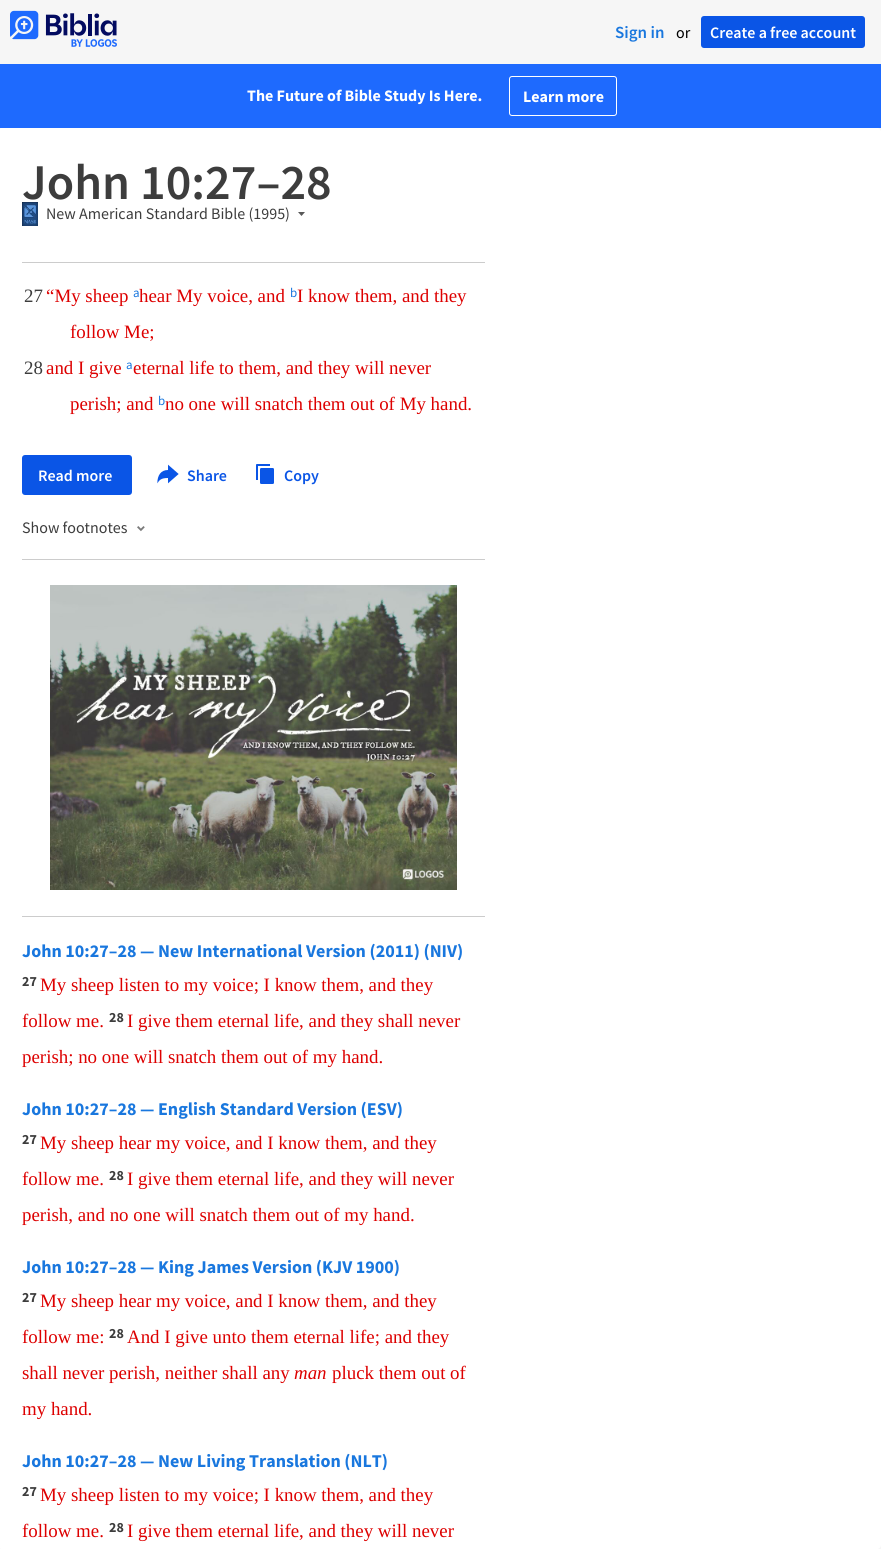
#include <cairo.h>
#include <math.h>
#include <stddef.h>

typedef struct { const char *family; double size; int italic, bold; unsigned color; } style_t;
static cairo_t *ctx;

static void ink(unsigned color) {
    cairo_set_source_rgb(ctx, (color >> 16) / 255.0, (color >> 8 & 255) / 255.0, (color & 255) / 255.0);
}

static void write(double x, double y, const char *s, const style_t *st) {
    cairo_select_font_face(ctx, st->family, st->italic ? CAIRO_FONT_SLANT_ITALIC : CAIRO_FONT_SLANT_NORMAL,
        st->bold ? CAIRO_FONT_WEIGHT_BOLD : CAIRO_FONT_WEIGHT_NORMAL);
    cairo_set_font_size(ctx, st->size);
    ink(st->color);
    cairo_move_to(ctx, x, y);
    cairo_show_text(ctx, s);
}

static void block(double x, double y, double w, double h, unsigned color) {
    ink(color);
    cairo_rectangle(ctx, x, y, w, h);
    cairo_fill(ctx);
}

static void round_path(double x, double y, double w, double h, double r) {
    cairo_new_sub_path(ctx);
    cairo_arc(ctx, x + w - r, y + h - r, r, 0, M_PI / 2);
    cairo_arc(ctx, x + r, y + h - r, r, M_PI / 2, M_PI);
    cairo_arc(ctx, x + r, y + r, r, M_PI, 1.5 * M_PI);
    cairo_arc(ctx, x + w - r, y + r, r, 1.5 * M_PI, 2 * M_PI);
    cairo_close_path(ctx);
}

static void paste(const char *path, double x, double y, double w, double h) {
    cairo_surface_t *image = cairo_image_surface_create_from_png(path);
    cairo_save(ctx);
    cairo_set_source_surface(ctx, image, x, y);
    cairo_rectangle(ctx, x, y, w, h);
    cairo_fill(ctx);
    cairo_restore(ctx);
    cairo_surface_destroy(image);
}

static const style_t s1 = {"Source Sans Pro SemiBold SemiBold", 17, 0, 0, 0x1977de};
static const style_t s2 = {"Source Sans Pro", 16, 0, 0, 0x000000};
static const style_t s3 = {"Source Sans Pro SemiBold SemiBold", 16, 0, 0, 0xffffff};
static const style_t s4 = {"Source Sans Pro", 16, 0, 1, 0xffffff};
static const style_t s5 = {"Source Sans Pro SemiBold SemiBold", 50, 0, 0, 0x3d3d3d};
static const style_t s6 = {"Source Sans Pro", 16, 0, 0, 0x3d3d3d};
static const style_t s7 = {"Liberation Serif", 18.9, 0, 0, 0x3d3d3d};
static const style_t s8 = {"Liberation Serif", 18.9, 0, 0, 0xdd0000};
static const style_t s9 = {"Source Sans Pro", 13, 0, 0, 0x1977de};
static const style_t s10 = {"Source Sans Pro SemiBold SemiBold", 16, 0, 0, 0x0a55e6};
static const style_t s11 = {"Source Sans Pro", 18, 0, 1, 0x1977de};
static const style_t s12 = {"Source Sans Pro", 14, 0, 1, 0x3d3d3d};
static const style_t s13 = {"Liberation Serif", 18.9, 1, 0, 0xdd0000};

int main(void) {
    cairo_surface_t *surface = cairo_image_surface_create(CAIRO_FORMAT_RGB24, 881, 1549);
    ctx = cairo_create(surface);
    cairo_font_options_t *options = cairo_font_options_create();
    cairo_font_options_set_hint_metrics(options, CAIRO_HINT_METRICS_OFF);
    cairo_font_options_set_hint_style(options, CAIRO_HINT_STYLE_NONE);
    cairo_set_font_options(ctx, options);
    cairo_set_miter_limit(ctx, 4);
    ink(0xf6f6f6);
    cairo_paint(ctx);
    paste("pic1.png", 10, 10, 107, 37);
    write(615, 38, "Sign in", &s1);
    write(676, 38, "or", &s2);
    ink(0x0a55e6);
    round_path(701, 16, 164, 32, 3);
    cairo_fill(ctx);
    write(710, 38, "Create a free account", &s3);
    block(0, 64, 881, 64, 0x1e6afe);
    write(247, 101, "The Future of Bible Study Is Here.", &s4);
    round_path(509.5, 76.5, 107, 39, 2.5);
    cairo_set_line_width(ctx, 1);
    cairo_stroke(ctx);
    write(523, 102, "Learn more", &s4);
    round_path(-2, 128, 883, 1421, 4);
    cairo_fill(ctx);
    block(22, 262, 463, 1, 0xcccccc);
    write(22, 199, "John 10:27–28", &s5);
    paste("pic2.png", 22, 202, 16, 24);
    write(46, 219, "New American Standard Bible (1995)", &s6);
    ink(0x585858);
    cairo_set_fill_rule(ctx, CAIRO_FILL_RULE_EVEN_ODD);
    cairo_new_path(ctx);
    cairo_move_to(ctx, 301.5, 216);
    cairo_line_to(ctx, 305, 212);
    cairo_line_to(ctx, 298, 212);
    cairo_close_path(ctx);
    cairo_fill(ctx);
    write(24, 302, "27", &s7);
    write(46, 302, "“My sheep", &s8);
    write(133, 297, "a", &s9);
    write(139, 302, "hear My voice, and", &s8);
    write(290, 297, "b", &s9);
    write(297, 302, "I know them, and they", &s8);
    write(70, 338, "follow Me;", &s8);
    write(24, 374, "28", &s7);
    write(46, 374, "and I give", &s8);
    write(126, 369, "a", &s9);
    write(133, 374, "eternal life to them, and they will never", &s8);
    write(70, 410, "perish; and", &s8);
    write(158, 405, "b", &s9);
    write(165, 410, "no one will snatch them out of My hand.", &s8);
    ink(0x0a55e6);
    round_path(22, 455, 110, 40, 3);
    cairo_fill(ctx);
    write(38, 481, "Read more", &s3);
    paste("pic3.png", 157, 464, 22, 20);
    write(187, 481, "Share", &s10);
    paste("pic4.png", 256, 464, 18, 20);
    write(284, 481, "Copy", &s10);
    write(22, 533, "Show footnotes", &s6);
    paste("pic5.png", 137, 526, 8, 6);
    block(22, 559, 463, 1, 0xcccccc);
    paste("pic6.png", 50, 585, 407, 305);
    block(22, 916, 463, 1, 0xcccccc);
    write(22, 957, "John 10:27–28 — New International Version (2011) (NIV)", &s11);
    write(22, 986, "27", &s12);
    write(40, 991, "My sheep listen to my voice; I know them, and they", &s8);
    write(22, 1027, "follow me.", &s8);
    write(109, 1022, "28", &s12);
    write(127, 1027, "I give them eternal life, and they shall never", &s8);
    write(22, 1063, "perish; no one will snatch them out of my hand.", &s8);
    write(22, 1115, "John 10:27–28 — English Standard Version (ESV)", &s11);
    write(22, 1144, "27", &s12);
    write(40, 1149, "My sheep hear my voice, and I know them, and they", &s8);
    write(22, 1185, "follow me.", &s8);
    write(109, 1180, "28", &s12);
    write(127, 1185, "I give them eternal life, and they will never", &s8);
    write(22, 1221, "perish, and no one will snatch them out of my hand.", &s8);
    write(22, 1273, "John 10:27–28 — King James Version (KJV 1900)", &s11);
    write(22, 1302, "27", &s12);
    write(40, 1307, "My sheep hear my voice, and I know them, and they", &s8);
    write(22, 1343, "follow me:", &s8);
    write(109, 1338, "28", &s12);
    write(127, 1343, "And I give unto them eternal life; and they", &s8);
    write(22, 1379, "shall never perish, neither shall any", &s8);
    write(294, 1379, "man", &s13);
    write(332, 1379, "pluck them out of", &s8);
    write(22, 1415, "my hand.", &s8);
    write(22, 1467, "John 10:27–28 — New Living Translation (NLT)", &s11);
    write(22, 1496, "27", &s12);
    write(40, 1501, "My sheep listen to my voice; I know them, and they", &s8);
    write(22, 1537, "follow me.", &s8);
    write(109, 1532, "28", &s12);
    write(127, 1537, "I give them eternal life, and they will never", &s8);
    cairo_surface_write_to_png(surface, "screenshot.png");
    cairo_font_options_destroy(options);
    cairo_destroy(ctx);
    cairo_surface_destroy(surface);
    return 0;
}
